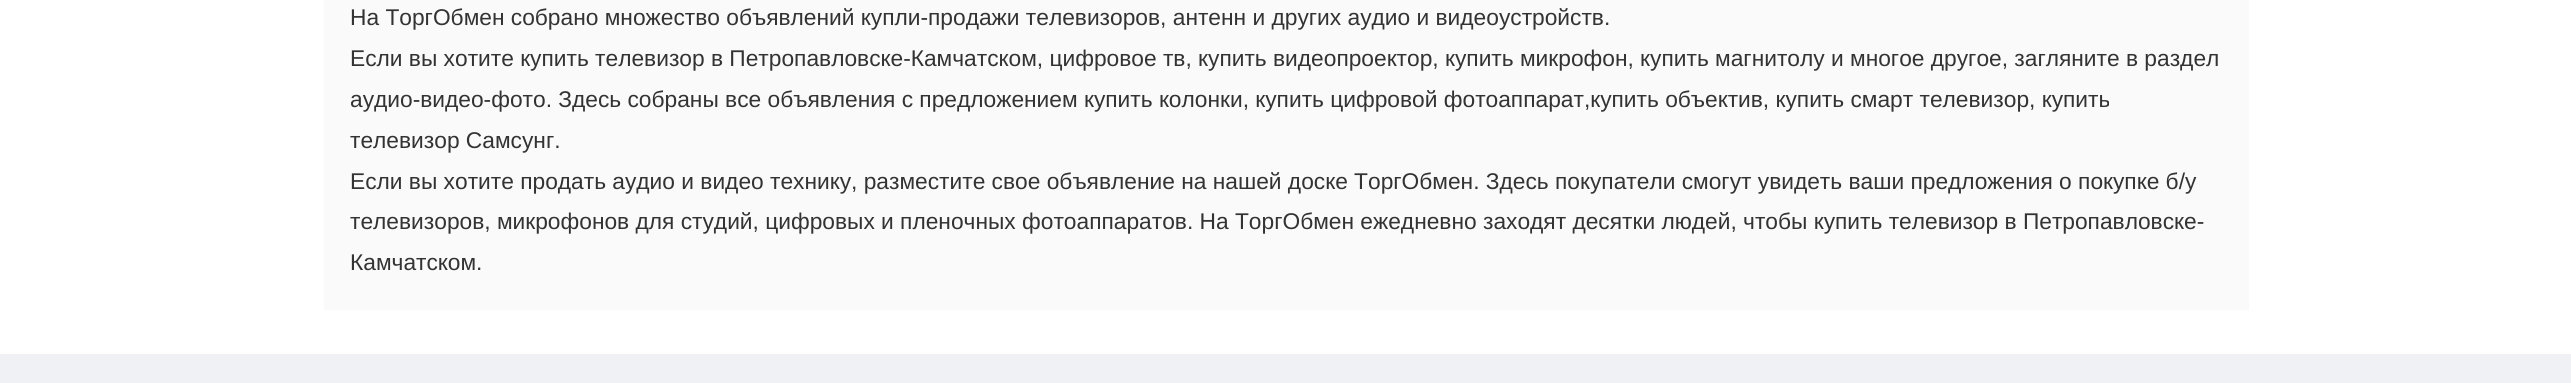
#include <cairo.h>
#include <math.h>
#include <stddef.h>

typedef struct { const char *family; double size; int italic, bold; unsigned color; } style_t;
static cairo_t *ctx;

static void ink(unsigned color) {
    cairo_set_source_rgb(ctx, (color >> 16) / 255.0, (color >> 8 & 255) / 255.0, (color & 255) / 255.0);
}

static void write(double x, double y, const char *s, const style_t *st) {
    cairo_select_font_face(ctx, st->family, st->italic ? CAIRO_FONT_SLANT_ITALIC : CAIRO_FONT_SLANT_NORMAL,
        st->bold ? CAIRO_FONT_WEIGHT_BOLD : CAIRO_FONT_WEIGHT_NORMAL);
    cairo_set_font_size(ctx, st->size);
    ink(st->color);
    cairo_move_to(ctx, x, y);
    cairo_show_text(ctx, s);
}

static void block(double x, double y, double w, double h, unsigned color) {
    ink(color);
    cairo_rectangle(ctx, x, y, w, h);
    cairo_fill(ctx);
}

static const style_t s1 = {"Liberation Sans", 22.75, 0, 0, 0x333333};

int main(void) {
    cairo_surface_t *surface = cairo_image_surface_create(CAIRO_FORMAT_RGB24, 2571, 383);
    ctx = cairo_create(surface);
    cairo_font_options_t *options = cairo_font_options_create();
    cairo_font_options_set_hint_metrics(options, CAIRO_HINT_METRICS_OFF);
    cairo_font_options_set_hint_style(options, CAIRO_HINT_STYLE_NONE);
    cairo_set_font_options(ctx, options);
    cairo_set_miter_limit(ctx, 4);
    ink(0xffffff);
    cairo_paint(ctx);
    block(324, 0, 1925, 310, 0xfafafa);
    write(350, 25, "На ТоргОбмен собрано множество объявлений купли-продажи телевизоров, антенн и других аудио и видеоустройств.", &s1);
    write(350, 66, "Если вы хотите купить телевизор в Петропавловске-Камчатском, цифровое тв, купить видеопроектор, купить микрофон, купить магнитолу и многое другое, загляните в раздел", &s1);
    write(350, 107, "аудио-видео-фото. Здесь собраны все объявления с предложением купить колонки, купить цифровой фотоаппарат,купить объектив, купить смарт телевизор, купить", &s1);
    write(350, 148, "телевизор Самсунг.", &s1);
    write(350, 189, "Если вы хотите продать аудио и видео технику, разместите свое объявление на нашей доске ТоргОбмен. Здесь покупатели смогут увидеть ваши предложения о покупке б/у", &s1);
    write(350, 229, "телевизоров, микрофонов для студий, цифровых и пленочных фотоаппаратов. На ТоргОбмен ежедневно заходят десятки людей, чтобы купить телевизор в Петропавловске-", &s1);
    write(350, 270, "Камчатском.", &s1);
    block(0, 354, 2571, 29, 0xf0f1f4);
    cairo_surface_write_to_png(surface, "screenshot.png");
    cairo_font_options_destroy(options);
    cairo_destroy(ctx);
    cairo_surface_destroy(surface);
    return 0;
}
